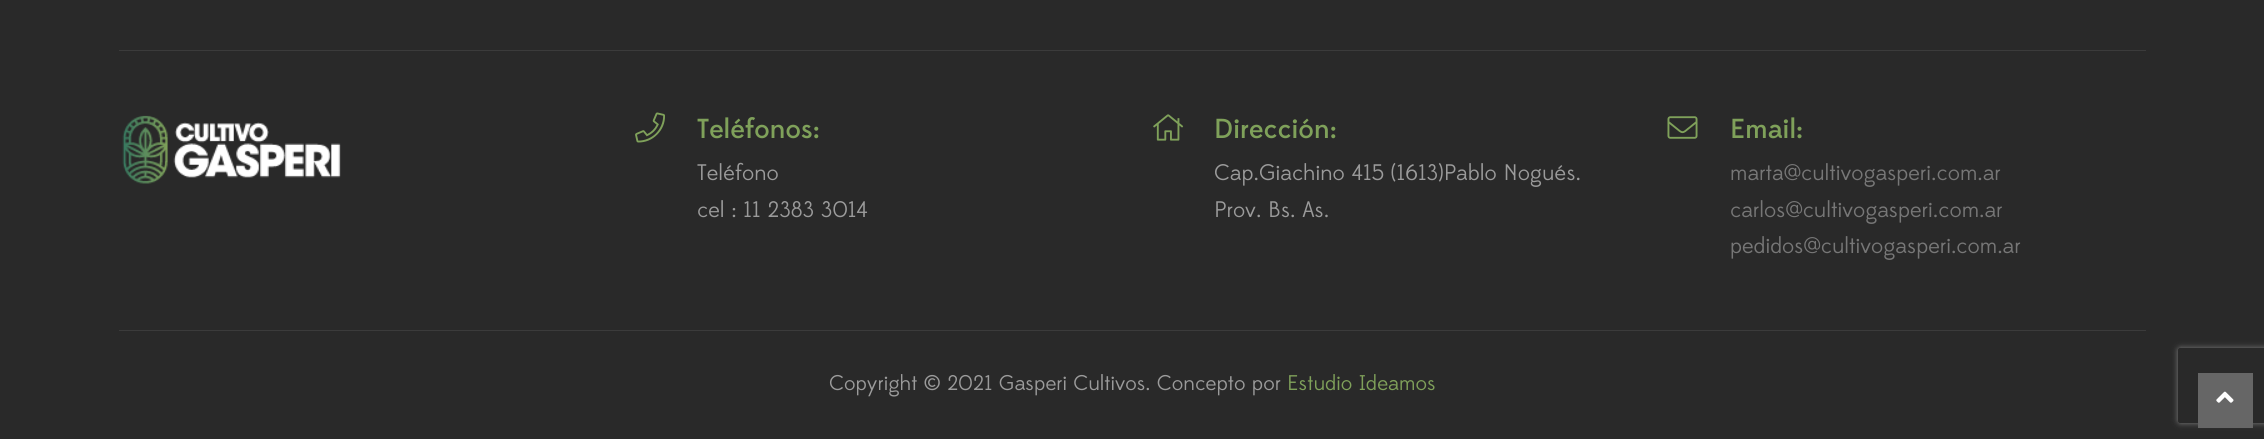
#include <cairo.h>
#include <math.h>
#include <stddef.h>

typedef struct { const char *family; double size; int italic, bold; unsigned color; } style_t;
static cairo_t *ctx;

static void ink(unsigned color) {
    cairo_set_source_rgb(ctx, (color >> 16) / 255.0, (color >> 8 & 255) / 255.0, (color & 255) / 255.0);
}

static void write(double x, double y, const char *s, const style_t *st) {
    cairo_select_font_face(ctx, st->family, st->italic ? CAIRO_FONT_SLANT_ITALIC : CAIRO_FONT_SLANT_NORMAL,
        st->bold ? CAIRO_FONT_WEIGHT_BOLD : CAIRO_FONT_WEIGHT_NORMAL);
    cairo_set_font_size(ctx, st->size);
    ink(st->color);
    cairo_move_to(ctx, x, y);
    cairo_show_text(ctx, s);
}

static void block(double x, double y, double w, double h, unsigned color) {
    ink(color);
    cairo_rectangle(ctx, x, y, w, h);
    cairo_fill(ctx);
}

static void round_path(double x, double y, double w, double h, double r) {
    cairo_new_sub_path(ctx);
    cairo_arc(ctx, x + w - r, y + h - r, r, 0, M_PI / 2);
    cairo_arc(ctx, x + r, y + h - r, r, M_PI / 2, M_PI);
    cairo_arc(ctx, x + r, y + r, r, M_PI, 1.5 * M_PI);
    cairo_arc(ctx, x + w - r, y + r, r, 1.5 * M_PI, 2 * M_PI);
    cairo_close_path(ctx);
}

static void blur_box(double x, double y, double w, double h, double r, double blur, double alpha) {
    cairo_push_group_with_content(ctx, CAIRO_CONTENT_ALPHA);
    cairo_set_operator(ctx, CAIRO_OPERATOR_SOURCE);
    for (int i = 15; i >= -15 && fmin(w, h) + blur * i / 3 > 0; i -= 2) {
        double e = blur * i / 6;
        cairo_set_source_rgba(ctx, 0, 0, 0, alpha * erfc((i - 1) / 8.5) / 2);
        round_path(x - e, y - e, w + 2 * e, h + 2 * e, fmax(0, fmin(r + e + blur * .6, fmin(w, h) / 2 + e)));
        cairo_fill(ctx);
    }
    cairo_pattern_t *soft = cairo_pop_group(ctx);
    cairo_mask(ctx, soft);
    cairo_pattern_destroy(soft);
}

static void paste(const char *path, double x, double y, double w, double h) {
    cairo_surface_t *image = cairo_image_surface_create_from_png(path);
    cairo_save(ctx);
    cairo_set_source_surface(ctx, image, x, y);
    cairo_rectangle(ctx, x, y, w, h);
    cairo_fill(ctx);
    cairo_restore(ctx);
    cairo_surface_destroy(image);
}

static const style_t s1 = {"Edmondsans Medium", 27.5, 0, 0, 0x7fa15a};
static const style_t s2 = {"Edmondsans", 22.5, 0, 0, 0x9b9b9b};
static const style_t s3 = {"Edmondsans", 22.5, 0, 0, 0x777777};
static const style_t s4 = {"Edmondsans", 21.25, 0, 0, 0x9b9b9b};
static const style_t s5 = {"Edmondsans", 21.25, 0, 0, 0x7fa15a};

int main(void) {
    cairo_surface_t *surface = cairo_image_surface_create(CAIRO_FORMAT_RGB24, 2264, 439);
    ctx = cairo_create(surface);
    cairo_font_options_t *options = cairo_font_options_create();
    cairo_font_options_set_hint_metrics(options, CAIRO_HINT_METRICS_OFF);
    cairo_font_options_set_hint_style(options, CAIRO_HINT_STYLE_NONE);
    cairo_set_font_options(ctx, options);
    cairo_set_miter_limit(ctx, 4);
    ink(0x292929);
    cairo_paint(ctx);
    block(119, 50, 2027, 1, 0x3b3b3b);
    paste("pic1.png", 122, 115, 219, 69);
    paste("pic2.png", 635, 112, 30, 31);
    write(697, 138, "Teléfonos:", &s1);
    write(697, 180, "Teléfono", &s2);
    write(697, 217, "cel : 11 2383 3014", &s2);
    paste("pic3.png", 1153, 114, 31, 27);
    write(1214, 138, "Dirección:", &s1);
    write(1214, 180, "Cap.Giachino 415 (1613)Pablo Nogués.", &s2);
    write(1214, 217, "Prov. Bs. As.", &s2);
    paste("pic4.png", 1667, 116, 31, 23);
    write(1730, 138, "Email:", &s1);
    write(1730, 180, "marta@cultivogasperi.com.ar", &s3);
    write(1730, 217, "carlos@cultivogasperi.com.ar", &s3);
    write(1730, 253, "pedidos@cultivogasperi.com.ar", &s3);
    block(119, 330, 2027, 1, 0x3b3b3b);
    write(829, 390, "Copyright © 2021 Gasperi Cultivos. Concepto por", &s4);
    write(1287, 390, "Estudio Ideamos", &s5);
    cairo_save(ctx);
    cairo_set_fill_rule(ctx, CAIRO_FILL_RULE_EVEN_ODD);
    cairo_new_path(ctx);
    cairo_move_to(ctx, 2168, 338);
    cairo_line_to(ctx, 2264, 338);
    cairo_line_to(ctx, 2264, 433);
    cairo_line_to(ctx, 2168, 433);
    cairo_close_path(ctx);
    cairo_move_to(ctx, 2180.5, 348);
    cairo_line_to(ctx, 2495.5, 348);
    cairo_curve_to(ctx, 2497, 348, 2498, 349, 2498, 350.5);
    cairo_line_to(ctx, 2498, 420.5);
    cairo_curve_to(ctx, 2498, 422, 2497, 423, 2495.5, 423);
    cairo_line_to(ctx, 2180.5, 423);
    cairo_curve_to(ctx, 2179, 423, 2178, 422, 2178, 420.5);
    cairo_line_to(ctx, 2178, 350.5);
    cairo_curve_to(ctx, 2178, 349, 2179, 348, 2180.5, 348);
    cairo_close_path(ctx);
    cairo_clip(ctx);
    ink(0x808080);
    blur_box(2178, 348, 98, 75, 2.5, 3, 1);
    cairo_restore(ctx);
    block(2198, 373, 55, 55, 0x666666);
    paste("pic5.png", 2216, 391, 18, 12);
    cairo_surface_write_to_png(surface, "screenshot.png");
    cairo_font_options_destroy(options);
    cairo_destroy(ctx);
    cairo_surface_destroy(surface);
    return 0;
}
